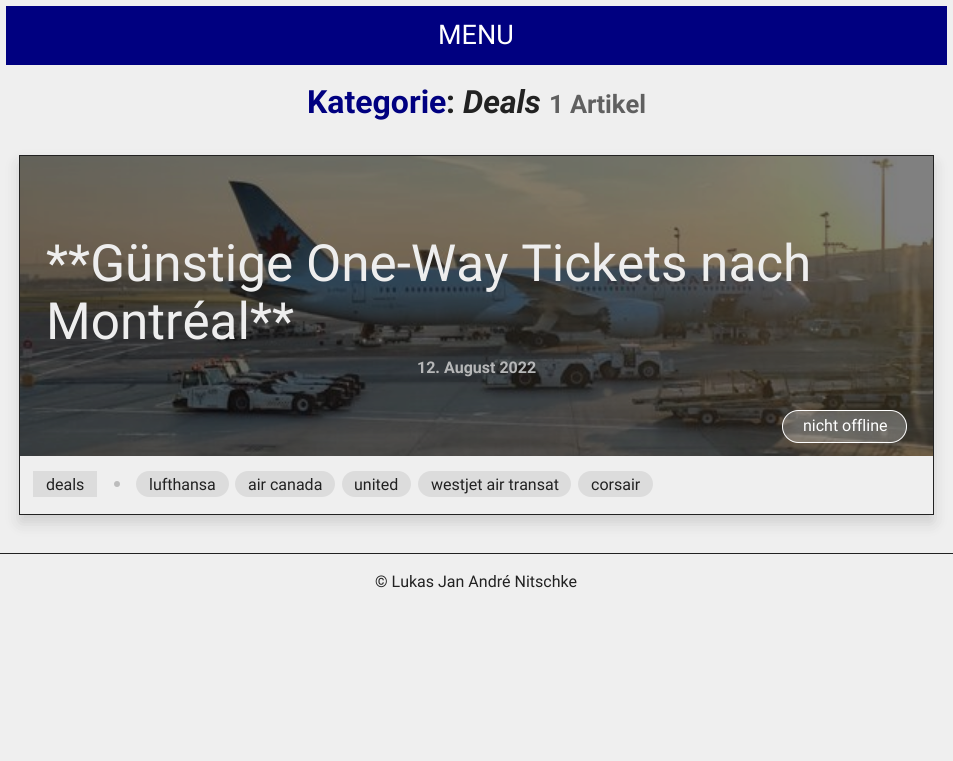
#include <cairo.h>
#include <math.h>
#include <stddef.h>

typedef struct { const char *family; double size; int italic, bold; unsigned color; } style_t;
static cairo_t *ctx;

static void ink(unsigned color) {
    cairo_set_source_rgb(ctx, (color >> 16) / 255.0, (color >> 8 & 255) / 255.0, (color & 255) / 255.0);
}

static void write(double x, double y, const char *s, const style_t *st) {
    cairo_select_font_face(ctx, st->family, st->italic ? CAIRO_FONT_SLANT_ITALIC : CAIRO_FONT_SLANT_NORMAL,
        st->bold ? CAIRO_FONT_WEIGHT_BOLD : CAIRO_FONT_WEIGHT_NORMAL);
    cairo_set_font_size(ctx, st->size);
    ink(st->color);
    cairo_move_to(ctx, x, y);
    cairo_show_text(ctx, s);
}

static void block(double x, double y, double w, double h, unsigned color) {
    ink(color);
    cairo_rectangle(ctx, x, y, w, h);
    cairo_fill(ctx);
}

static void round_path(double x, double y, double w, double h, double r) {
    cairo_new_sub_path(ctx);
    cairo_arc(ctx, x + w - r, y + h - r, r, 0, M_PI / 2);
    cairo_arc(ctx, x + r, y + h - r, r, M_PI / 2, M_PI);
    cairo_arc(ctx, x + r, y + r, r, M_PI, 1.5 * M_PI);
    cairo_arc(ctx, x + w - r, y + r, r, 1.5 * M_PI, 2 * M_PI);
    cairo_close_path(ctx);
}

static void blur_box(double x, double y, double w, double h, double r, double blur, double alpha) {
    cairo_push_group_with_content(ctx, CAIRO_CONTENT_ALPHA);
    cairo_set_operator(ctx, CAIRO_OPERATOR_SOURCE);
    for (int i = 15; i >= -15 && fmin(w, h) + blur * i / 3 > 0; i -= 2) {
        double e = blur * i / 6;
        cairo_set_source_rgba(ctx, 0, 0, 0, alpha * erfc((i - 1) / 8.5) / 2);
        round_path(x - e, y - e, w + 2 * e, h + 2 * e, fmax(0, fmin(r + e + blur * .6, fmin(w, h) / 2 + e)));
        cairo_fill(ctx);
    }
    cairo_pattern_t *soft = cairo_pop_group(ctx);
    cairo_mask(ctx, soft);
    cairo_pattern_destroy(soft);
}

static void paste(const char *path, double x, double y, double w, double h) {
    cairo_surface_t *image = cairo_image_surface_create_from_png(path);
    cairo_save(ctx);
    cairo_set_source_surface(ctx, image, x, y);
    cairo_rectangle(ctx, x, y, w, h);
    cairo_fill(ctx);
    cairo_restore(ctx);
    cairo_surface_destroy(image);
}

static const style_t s1 = {"Roboto", 27, 0, 0, 0xffffff};
static const style_t s2 = {"Roboto", 32, 0, 1, 0x000080};
static const style_t s3 = {"Roboto", 32, 0, 1, 0x222222};
static const style_t s4 = {"Roboto", 32, 1, 1, 0x222222};
static const style_t s5 = {"Roboto", 25.5, 0, 1, 0x606060};
static const style_t s6 = {"Roboto", 51.25, 0, 0, 0xeeeeee};
static const style_t s7 = {"Roboto", 16, 0, 1, 0xb6b7b8};
static const style_t s8 = {"Roboto", 16, 0, 0, 0xffffff};
static const style_t s9 = {"Roboto", 16, 0, 0, 0x222222};

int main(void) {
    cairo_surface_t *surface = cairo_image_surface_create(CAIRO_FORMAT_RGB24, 953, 761);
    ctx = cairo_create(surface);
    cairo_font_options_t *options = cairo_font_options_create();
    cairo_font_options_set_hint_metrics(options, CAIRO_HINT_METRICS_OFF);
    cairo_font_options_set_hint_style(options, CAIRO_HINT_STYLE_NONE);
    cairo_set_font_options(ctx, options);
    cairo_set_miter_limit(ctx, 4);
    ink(0xefefef);
    cairo_paint(ctx);
    block(6, 6, 941, 59, 0x000080);
    write(438, 44, "MENU", &s1);
    write(307, 113, "Kategorie", &s2);
    write(446, 113, ":", &s3);
    write(463, 113, "Deals", &s4);
    write(549, 113, "1 Artikel", &s5);
    cairo_save(ctx);
    cairo_set_fill_rule(ctx, CAIRO_FILL_RULE_EVEN_ODD);
    cairo_new_path(ctx);
    cairo_move_to(ctx, 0, 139);
    cairo_line_to(ctx, 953, 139);
    cairo_line_to(ctx, 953, 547);
    cairo_line_to(ctx, 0, 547);
    cairo_close_path(ctx);
    cairo_move_to(ctx, 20, 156);
    cairo_line_to(ctx, 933, 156);
    cairo_line_to(ctx, 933, 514);
    cairo_line_to(ctx, 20, 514);
    cairo_close_path(ctx);
    cairo_clip(ctx);
    ink(0x000000);
    blur_box(20, 164, 913, 358, 0, 8, 0.15);
    cairo_restore(ctx);
    cairo_rectangle(ctx, 19.5, 155.5, 914, 359);
    ink(0x222222);
    cairo_set_line_width(ctx, 1);
    cairo_stroke(ctx);
    paste("pic1.png", 20, 156, 913, 300);
    write(46, 281, "**Günstige One-Way Tickets nach", &s6);
    write(46, 339, "Montréal**", &s6);
    write(417, 373, "12. August 2022", &s7);
    cairo_set_source_rgba(ctx, 1, 1, 1, 0.25);
    round_path(782.5, 410.5, 124, 32, 16);
    cairo_fill_preserve(ctx);
    ink(0xffffff);
    cairo_stroke(ctx);
    write(803, 431, "nicht offline", &s8);
    block(33, 471, 64, 26, 0xdcdcdc);
    write(46, 490, "deals", &s9);
    ink(0xbcbcbc);
    cairo_new_path(ctx);
    cairo_arc(ctx, 117, 484, 3, 0, 2 * M_PI);
    cairo_fill(ctx);
    ink(0xdcdcdc);
    round_path(136, 471, 93, 26, 13);
    cairo_fill(ctx);
    write(149, 490, "lufthansa", &s9);
    ink(0xdcdcdc);
    round_path(235, 471, 100, 26, 13);
    cairo_fill(ctx);
    write(248, 490, "air canada", &s9);
    ink(0xdcdcdc);
    round_path(342, 471, 69, 26, 13);
    cairo_fill(ctx);
    write(354, 490, "united", &s9);
    ink(0xdcdcdc);
    round_path(418, 471, 153, 26, 13);
    cairo_fill(ctx);
    write(431, 490, "westjet air transat", &s9);
    ink(0xdcdcdc);
    round_path(578, 471, 75, 26, 13);
    cairo_fill(ctx);
    write(591, 490, "corsair", &s9);
    block(0, 553, 953, 1, 0x222222);
    write(375, 587, "© Lukas Jan André Nitschke", &s9);
    cairo_surface_write_to_png(surface, "screenshot.png");
    cairo_font_options_destroy(options);
    cairo_destroy(ctx);
    cairo_surface_destroy(surface);
    return 0;
}
